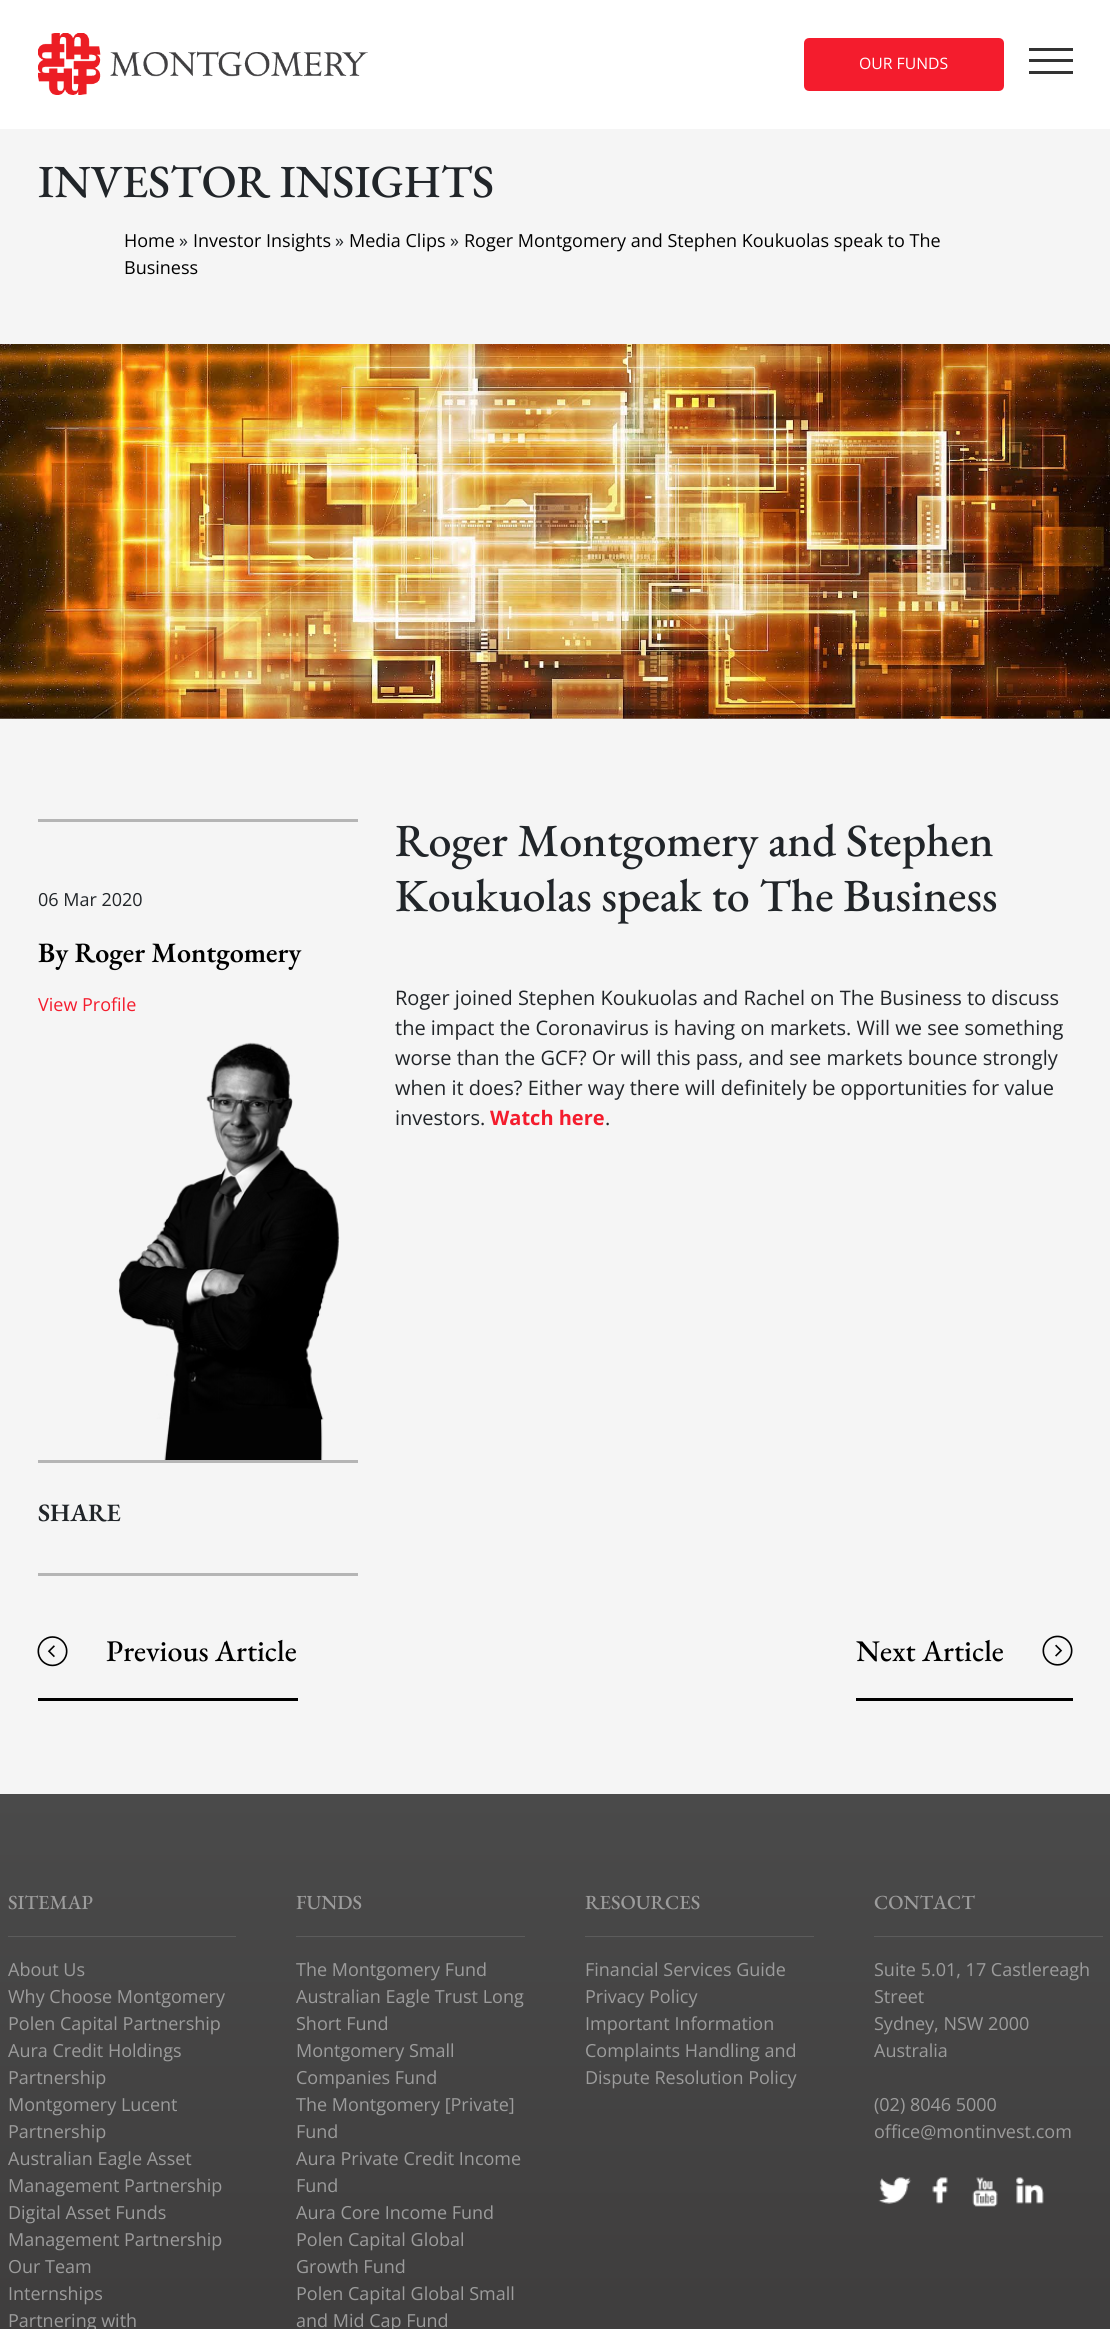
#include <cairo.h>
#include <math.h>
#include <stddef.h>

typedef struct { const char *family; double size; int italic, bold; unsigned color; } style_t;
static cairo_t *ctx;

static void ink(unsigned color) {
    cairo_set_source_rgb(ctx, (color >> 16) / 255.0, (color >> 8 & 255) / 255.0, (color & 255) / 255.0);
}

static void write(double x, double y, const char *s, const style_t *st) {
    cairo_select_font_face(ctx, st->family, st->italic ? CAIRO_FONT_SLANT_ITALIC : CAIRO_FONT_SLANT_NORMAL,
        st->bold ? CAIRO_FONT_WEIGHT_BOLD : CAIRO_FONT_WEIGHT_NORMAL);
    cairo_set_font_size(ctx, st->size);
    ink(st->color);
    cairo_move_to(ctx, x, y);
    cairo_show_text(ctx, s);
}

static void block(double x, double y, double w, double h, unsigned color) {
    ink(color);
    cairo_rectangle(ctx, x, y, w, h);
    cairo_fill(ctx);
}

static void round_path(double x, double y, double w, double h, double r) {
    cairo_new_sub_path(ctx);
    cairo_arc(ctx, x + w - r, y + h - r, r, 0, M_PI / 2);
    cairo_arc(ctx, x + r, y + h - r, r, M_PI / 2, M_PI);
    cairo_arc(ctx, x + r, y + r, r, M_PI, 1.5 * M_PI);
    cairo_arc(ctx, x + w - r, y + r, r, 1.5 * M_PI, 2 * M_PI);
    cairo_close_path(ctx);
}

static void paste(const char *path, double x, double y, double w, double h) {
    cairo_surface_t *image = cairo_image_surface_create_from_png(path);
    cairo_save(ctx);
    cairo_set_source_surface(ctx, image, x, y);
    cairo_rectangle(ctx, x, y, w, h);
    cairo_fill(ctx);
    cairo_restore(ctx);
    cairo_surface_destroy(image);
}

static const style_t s1 = {"Open Sans", 15.75, 0, 0, 0xffffff};
static const style_t s2 = {"EB Garamond Medium", 46, 0, 0, 0x212529};
static const style_t s3 = {"Open Sans", 18, 0, 0, 0x000000};
static const style_t s4 = {"Open Sans", 18, 0, 0, 0x212529};
static const style_t s5 = {"EB Garamond SemiBold", 28, 0, 0, 0x000000};
static const style_t s6 = {"Open Sans", 18, 0, 0, 0xf41c2d};
static const style_t s7 = {"EB Garamond SemiBold", 25, 0, 0, 0x212529};
static const style_t s8 = {"Open Sans", 20, 0, 0, 0x212529};
static const style_t s9 = {"Open Sans", 20, 0, 1, 0xf41c2d};
static const style_t s10 = {"EB Garamond Medium", 30, 0, 0, 0x000000};
static const style_t s11 = {"EB Garamond Medium", 20, 0, 0, 0x9c9c9c};
static const style_t s12 = {"Open Sans", 18, 0, 0, 0x9c9c9c};

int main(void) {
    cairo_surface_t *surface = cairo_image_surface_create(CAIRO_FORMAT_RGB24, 1110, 2329);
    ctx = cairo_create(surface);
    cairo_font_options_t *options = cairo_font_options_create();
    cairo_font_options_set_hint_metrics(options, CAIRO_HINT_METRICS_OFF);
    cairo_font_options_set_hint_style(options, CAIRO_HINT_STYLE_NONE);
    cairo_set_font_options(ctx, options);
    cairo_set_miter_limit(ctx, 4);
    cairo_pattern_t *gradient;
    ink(0xffffff);
    cairo_paint(ctx);
    paste("pic1.png", 38, 33, 330, 62);
    ink(0xf41c2d);
    round_path(805.5, 39.5, 197, 50, 3.5);
    cairo_fill_preserve(ctx);
    cairo_set_line_width(ctx, 3);
    cairo_stroke(ctx);
    write(859, 69, "OUR FUNDS", &s1);
    block(1029, 48, 44, 3, 0x333333);
    block(1029, 59, 44, 3, 0x333333);
    block(1029, 71, 44, 3, 0x333333);
    block(0, 129, 1110, 215, 0xf5f5f5);
    write(38, 197, "INVESTOR INSIGHTS", &s2);
    write(124, 247, "Home", &s3);
    write(179, 247, "»", &s4);
    write(193, 247, "Investor Insights", &s3);
    write(335, 247, "»", &s4);
    write(349, 247, "Media Clips", &s3);
    write(450, 247, "»", &s4);
    write(464, 247, "Roger Montgomery and Stephen Koukuolas speak to The", &s3);
    write(124, 274, "Business", &s3);
    paste("pic2.png", 0, 344, 1110, 375);
    block(0, 719, 1110, 1075, 0xf5f5f5);
    block(38, 819, 320, 3, 0xb5b5b5);
    write(38, 906, "06 Mar 2020", &s4);
    write(38, 962, "By Roger Montgomery", &s5);
    write(38, 1011, "View Profile", &s6);
    paste("pic3.png", 118, 1042, 222, 418);
    block(38, 1460, 320, 3, 0xb5b5b5);
    write(38, 1521, "SHARE", &s7);
    block(38, 1573, 320, 3, 0xb5b5b5);
    write(395, 856, "Roger Montgomery and Stephen", &s2);
    write(395, 911, "Koukuolas speak to The Business", &s2);
    write(395, 1005, "Roger joined Stephen Koukuolas and Rachel on The Business to discuss", &s8);
    write(395, 1035, "the impact the Coronavirus is having on markets. Will we see something", &s8);
    write(395, 1065, "worse than the GCF? Or will this pass, and see markets bounce strongly", &s8);
    write(395, 1095, "when it does? Either way there will definitely be opportunities for value", &s8);
    write(395, 1125, "investors.", &s8);
    write(490, 1125, "Watch here", &s9);
    write(605, 1125, ".", &s8);
    block(38, 1698, 260, 3, 0x000000);
    paste("pic4.png", 37, 1636, 31, 31);
    write(106, 1661, "Previous Article", &s10);
    block(856, 1698, 217, 3, 0x000000);
    write(856, 1661, "Next Article", &s10);
    paste("pic5.png", 1042, 1635, 31, 31);
    gradient = cairo_pattern_create_linear(555, 1794, 555, 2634);
    cairo_pattern_add_color_stop_rgba(gradient, 0, 0.29, 0.29, 0.29, 1);
    cairo_pattern_add_color_stop_rgba(gradient, 1, 0.22, 0.212, 0.212, 1);
    cairo_set_source(ctx, gradient);
    cairo_pattern_destroy(gradient);
    cairo_rectangle(ctx, 0, 1794, 1110, 535);
    cairo_fill(ctx);
    block(8, 1936, 228, 1, 0x5c5c5c);
    write(8, 1909, "SITEMAP", &s11);
    write(8, 1976, "About Us", &s12);
    write(8, 2003, "Why Choose Montgomery", &s12);
    write(8, 2030, "Polen Capital Partnership", &s12);
    write(8, 2057, "Aura Credit Holdings", &s12);
    write(8, 2084, "Partnership", &s12);
    write(8, 2111, "Montgomery Lucent", &s12);
    write(8, 2138, "Partnership", &s12);
    write(8, 2165, "Australian Eagle Asset", &s12);
    write(8, 2192, "Management Partnership", &s12);
    write(8, 2219, "Digital Asset Funds", &s12);
    write(8, 2246, "Management Partnership", &s12);
    write(8, 2273, "Our Team", &s12);
    write(8, 2300, "Internships", &s12);
    write(8, 2327, "Partnering with", &s12);
    block(296, 1936, 229, 1, 0x5c5c5c);
    write(296, 1909, "FUNDS", &s11);
    write(296, 1976, "The Montgomery Fund", &s12);
    write(296, 2003, "Australian Eagle Trust Long", &s12);
    write(296, 2030, "Short Fund", &s12);
    write(296, 2057, "Montgomery Small", &s12);
    write(296, 2084, "Companies Fund", &s12);
    write(296, 2111, "The Montgomery [Private]", &s12);
    write(296, 2138, "Fund", &s12);
    write(296, 2165, "Aura Private Credit Income", &s12);
    write(296, 2192, "Fund", &s12);
    write(296, 2219, "Aura Core Income Fund", &s12);
    write(296, 2246, "Polen Capital Global", &s12);
    write(296, 2273, "Growth Fund", &s12);
    write(296, 2300, "Polen Capital Global Small", &s12);
    write(296, 2327, "and Mid Cap Fund", &s12);
    block(585, 1936, 229, 1, 0x5c5c5c);
    write(585, 1909, "RESOURCES", &s11);
    write(585, 1976, "Financial Services Guide", &s12);
    write(585, 2003, "Privacy Policy", &s12);
    write(585, 2030, "Important Information", &s12);
    write(585, 2057, "Complaints Handling and", &s12);
    write(585, 2084, "Dispute Resolution Policy", &s12);
    block(874, 1936, 229, 1, 0x5c5c5c);
    write(874, 1909, "CONTACT", &s11);
    write(874, 1976, "Suite 5.01, 17 Castlereagh", &s12);
    write(874, 2003, "Street", &s12);
    write(874, 2030, "Sydney, NSW 2000", &s12);
    write(874, 2057, "Australia", &s12);
    write(874, 2111, "(02) 8046 5000", &s12);
    write(874, 2138, "office@montinvest.com", &s12);
    paste("pic6.png", 878, 2177, 34, 27);
    paste("pic7.png", 932, 2177, 16, 27);
    paste("pic8.png", 972, 2177, 26, 30);
    paste("pic9.png", 1016, 2177, 28, 27);
    cairo_surface_write_to_png(surface, "screenshot.png");
    cairo_font_options_destroy(options);
    cairo_destroy(ctx);
    cairo_surface_destroy(surface);
    return 0;
}
